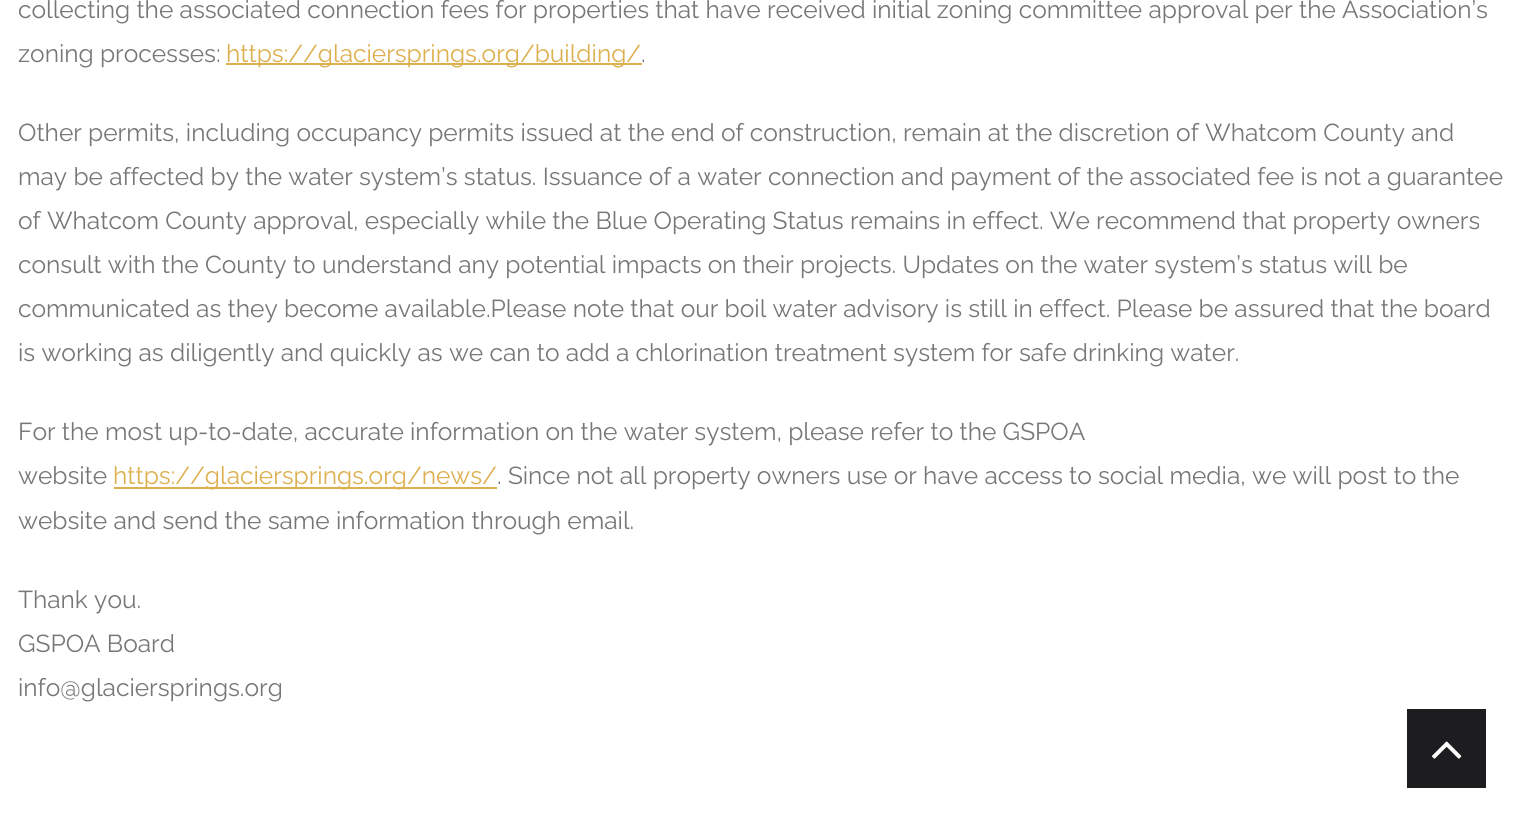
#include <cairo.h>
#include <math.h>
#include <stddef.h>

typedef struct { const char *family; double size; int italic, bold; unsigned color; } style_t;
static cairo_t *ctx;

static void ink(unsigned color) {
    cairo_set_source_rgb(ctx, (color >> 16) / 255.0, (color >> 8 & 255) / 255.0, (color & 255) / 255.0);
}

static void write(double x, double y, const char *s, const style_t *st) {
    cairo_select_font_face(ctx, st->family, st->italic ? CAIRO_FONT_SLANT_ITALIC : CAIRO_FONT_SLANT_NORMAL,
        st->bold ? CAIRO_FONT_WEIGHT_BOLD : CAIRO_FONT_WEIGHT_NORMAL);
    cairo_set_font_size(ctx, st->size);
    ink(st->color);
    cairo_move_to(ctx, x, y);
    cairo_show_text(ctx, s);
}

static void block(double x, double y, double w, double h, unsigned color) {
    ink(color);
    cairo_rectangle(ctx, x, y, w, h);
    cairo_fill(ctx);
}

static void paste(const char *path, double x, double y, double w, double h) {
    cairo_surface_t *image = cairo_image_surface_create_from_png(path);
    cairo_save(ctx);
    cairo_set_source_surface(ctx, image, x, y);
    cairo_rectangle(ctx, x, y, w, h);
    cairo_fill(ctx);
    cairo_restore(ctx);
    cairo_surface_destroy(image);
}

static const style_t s1 = {"Raleway", 24.5, 0, 0, 0x777777};
static const style_t s2 = {"Raleway", 24.5, 0, 0, 0xddaf4d};

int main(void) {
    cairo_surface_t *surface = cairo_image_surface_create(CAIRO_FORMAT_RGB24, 1520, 822);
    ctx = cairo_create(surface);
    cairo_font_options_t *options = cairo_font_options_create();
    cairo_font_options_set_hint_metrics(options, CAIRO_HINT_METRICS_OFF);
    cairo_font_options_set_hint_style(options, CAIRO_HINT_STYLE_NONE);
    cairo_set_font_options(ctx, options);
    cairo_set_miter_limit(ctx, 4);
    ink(0xffffff);
    cairo_paint(ctx);
    write(18, 18, "collecting the associated connection fees for properties that have received initial zoning committee approval per the Association’s", &s1);
    write(18, 62, "zoning processes:", &s1);
    block(226, 63, 416, 2, 0xddaf4d);
    write(226, 62, "https://glaciersprings.org/building/", &s2);
    write(641, 62, ".", &s1);
    write(18, 141, "Other permits, including occupancy permits issued at the end of construction, remain at the discretion of Whatcom County and", &s1);
    write(18, 185, "may be affected by the water system’s status. Issuance of a water connection and payment of the associated fee is not a guarantee", &s1);
    write(18, 229, "of Whatcom County approval, especially while the Blue Operating Status remains in effect. We recommend that property owners", &s1);
    write(18, 273, "consult with the County to understand any potential impacts on their projects. Updates on the water system’s status will be", &s1);
    write(18, 317, "communicated as they become available.Please note that our boil water advisory is still in effect. Please be assured that the board", &s1);
    write(18, 361, "is working as diligently and quickly as we can to add a chlorination treatment system for safe drinking water.", &s1);
    write(18, 440, "For the most up-to-date, accurate information on the water system, please refer to the GSPOA", &s1);
    write(18, 484, "website", &s1);
    block(114, 487, 383, 2, 0xddaf4d);
    write(113, 484, "https://glaciersprings.org/news/", &s2);
    write(497, 484, ". Since not all property owners use or have access to social media, we will post to the", &s1);
    write(18, 529, "website and send the same information through email.", &s1);
    write(18, 608, "Thank you.", &s1);
    write(18, 652, "GSPOA Board", &s1);
    write(18, 696, "info@glaciersprings.org", &s1);
    block(1407, 709, 79, 79, 0x1d1d1f);
    paste("pic1.png", 1432, 741, 30, 18);
    cairo_surface_write_to_png(surface, "screenshot.png");
    cairo_font_options_destroy(options);
    cairo_destroy(ctx);
    cairo_surface_destroy(surface);
    return 0;
}
